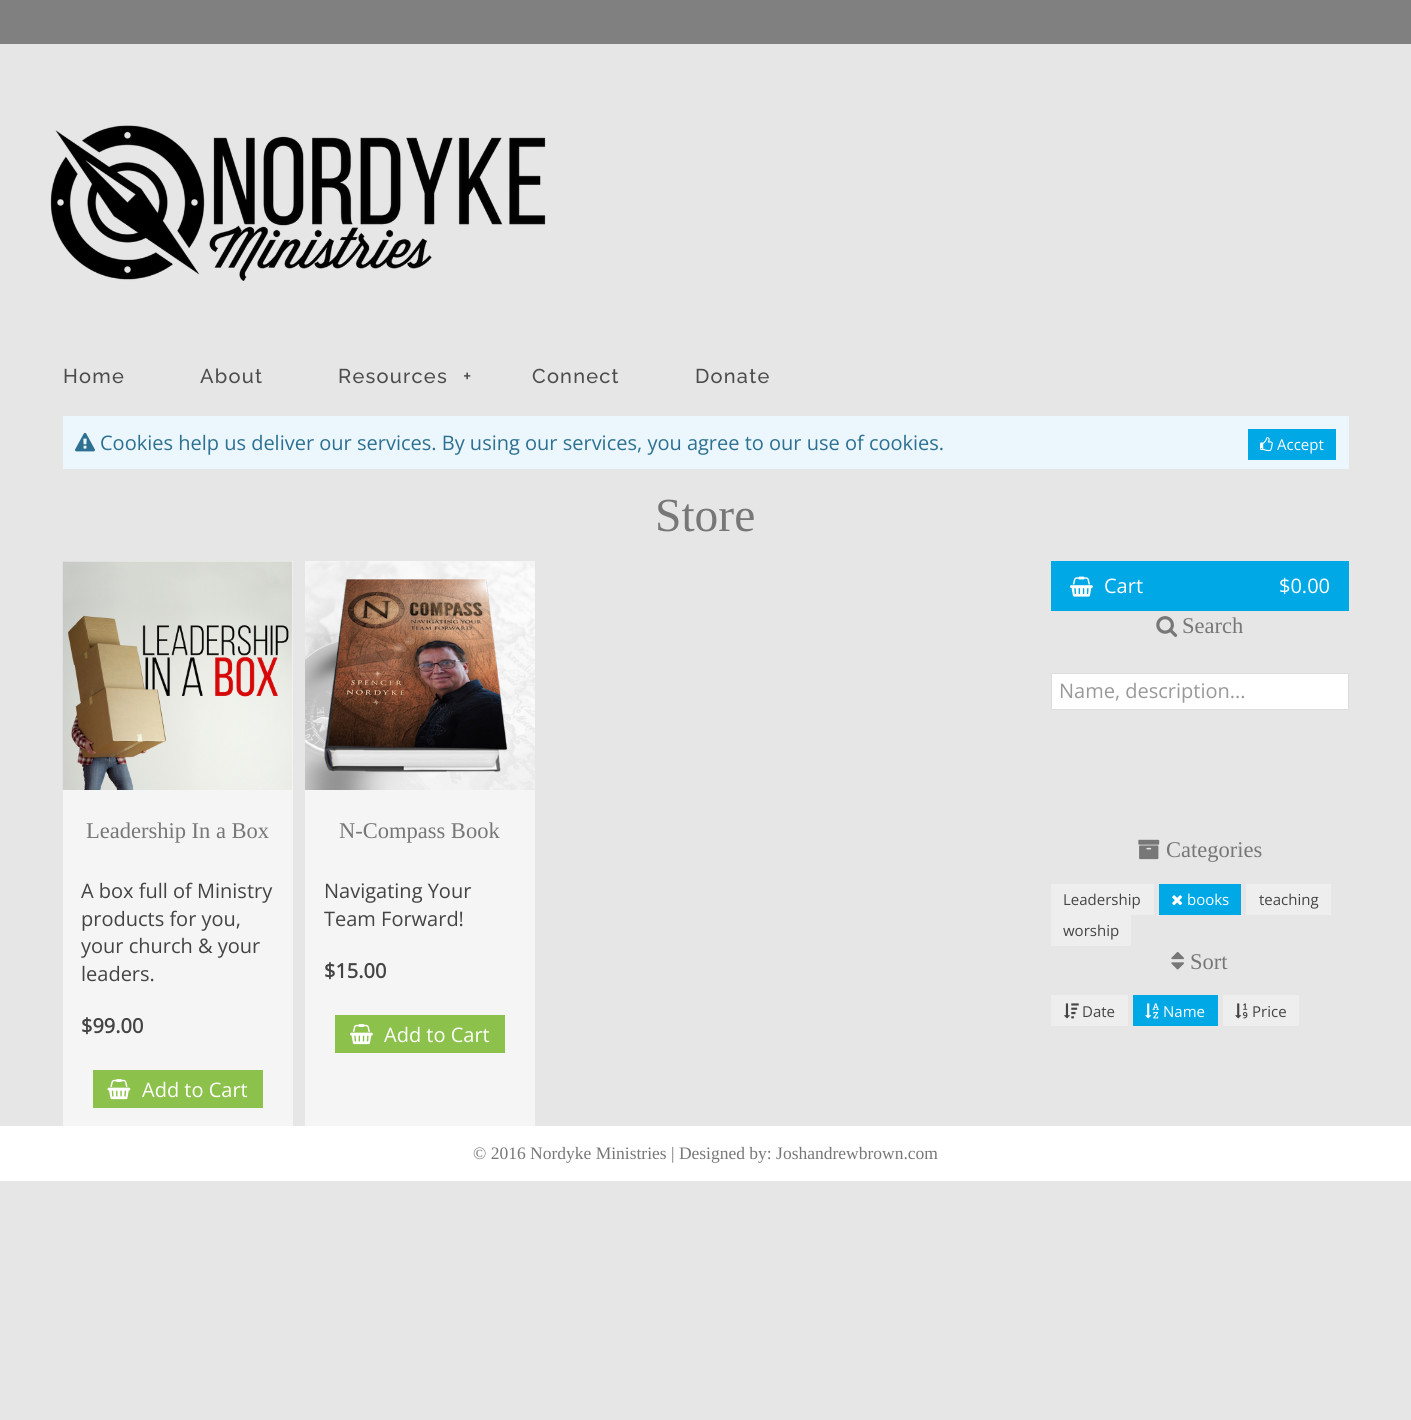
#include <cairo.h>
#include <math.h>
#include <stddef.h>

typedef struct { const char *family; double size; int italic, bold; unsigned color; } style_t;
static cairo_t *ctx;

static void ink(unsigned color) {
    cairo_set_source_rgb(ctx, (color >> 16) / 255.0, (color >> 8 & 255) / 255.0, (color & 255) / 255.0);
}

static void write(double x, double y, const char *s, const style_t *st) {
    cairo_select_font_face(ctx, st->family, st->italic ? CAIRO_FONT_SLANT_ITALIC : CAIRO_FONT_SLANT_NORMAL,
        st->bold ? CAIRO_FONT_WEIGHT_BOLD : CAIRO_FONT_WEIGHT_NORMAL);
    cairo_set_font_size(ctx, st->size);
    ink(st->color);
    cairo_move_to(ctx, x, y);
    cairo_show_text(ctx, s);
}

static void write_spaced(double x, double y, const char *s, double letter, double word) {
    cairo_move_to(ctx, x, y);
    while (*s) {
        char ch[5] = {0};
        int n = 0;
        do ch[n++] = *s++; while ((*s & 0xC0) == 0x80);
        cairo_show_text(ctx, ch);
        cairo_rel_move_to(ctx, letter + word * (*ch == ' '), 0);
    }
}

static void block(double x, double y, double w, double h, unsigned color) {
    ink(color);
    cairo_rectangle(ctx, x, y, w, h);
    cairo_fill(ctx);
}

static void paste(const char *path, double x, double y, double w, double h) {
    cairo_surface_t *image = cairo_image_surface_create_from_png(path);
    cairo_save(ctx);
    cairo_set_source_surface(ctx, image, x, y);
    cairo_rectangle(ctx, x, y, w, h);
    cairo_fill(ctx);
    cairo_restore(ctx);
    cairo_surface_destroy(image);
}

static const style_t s1 = {"Open Sans", 20, 0, 0, 0x2d7091};
static const style_t s2 = {"Open Sans", 15, 0, 0, 0xffffff};
static const style_t s3 = {"Liberation Serif", 47.5, 0, 0, 0x777777};
static const style_t s4 = {"Liberation Serif", 22.5, 0, 0, 0x777777};
static const style_t s5 = {"Open Sans", 20, 0, 0, 0x444444};
static const style_t s6 = {"Open Sans", 20, 0, 1, 0x444444};
static const style_t s7 = {"Open Sans", 20, 0, 0, 0xffffff};
static const style_t s8 = {"Open Sans", 20, 0, 0, 0x999999};
static const style_t s9 = {"Open Sans", 15, 0, 0, 0x444444};
static const style_t s10 = {"Liberation Serif", 17.5, 0, 0, 0x777777};

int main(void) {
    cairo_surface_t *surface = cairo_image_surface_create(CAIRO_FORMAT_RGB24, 1411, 1420);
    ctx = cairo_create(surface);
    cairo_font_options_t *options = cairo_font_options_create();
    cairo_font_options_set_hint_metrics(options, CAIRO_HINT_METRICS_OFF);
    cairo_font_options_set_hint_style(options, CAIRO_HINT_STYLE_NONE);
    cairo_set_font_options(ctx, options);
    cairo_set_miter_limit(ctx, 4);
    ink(0xe6e6e6);
    cairo_paint(ctx);
    block(0, 0, 1411, 44, 0x808080);
    paste("pic1.png", 50, 125, 496, 156);
    cairo_select_font_face(ctx, "Raleway Thin", CAIRO_FONT_SLANT_NORMAL, CAIRO_FONT_WEIGHT_NORMAL);
    cairo_set_font_size(ctx, 20);
    ink(0x4c4c4c);
    write_spaced(63, 383, "Home", 1.25, 0);
    write_spaced(200, 383, "About", 1.25, 0);
    write_spaced(338, 383, "Resources", 1.25, 0);
    write_spaced(463, 383, "+", 1.25, 0);
    write_spaced(532, 383, "Connect", 1.25, 0);
    write_spaced(695, 383, "Donate", 1.25, 0);
    block(63, 416, 1286, 53, 0xebf7fd);
    paste("pic2.png", 75, 432, 20, 20);
    write(100, 450, "Cookies help us deliver our services. By using our services, you agree to our use of cookies.", &s1);
    block(1248, 429, 88, 31, 0x00a8e6);
    paste("pic3.png", 1260, 437, 13, 15);
    write(1277, 450, "Accept", &s2);
    write(655, 531, "Store", &s3);
    block(63, 561, 230, 565, 0xf5f5f5);
    paste("pic4.png", 62, 561, 231, 229);
    write(86, 838, "Leadership In a Box", &s4);
    write(81, 898, "A box full of Ministry", &s5);
    write(81, 926, "products for you,", &s5);
    write(81, 953, "your church & your", &s5);
    write(81, 981, "leaders.", &s5);
    write(81, 1033, "$99.00", &s6);
    block(93, 1070, 170, 38, 0x8cc14c);
    paste("pic5.png", 107, 1079, 24, 21);
    write(142, 1097, "Add to Cart", &s7);
    block(305, 561, 230, 565, 0xf5f5f5);
    paste("pic6.png", 305, 561, 230, 229);
    write(339, 838, "N-Compass Book", &s4);
    write(324, 898, "Navigating Your", &s5);
    write(324, 926, "Team Forward!", &s5);
    write(324, 978, "$15.00", &s6);
    block(335, 1015, 170, 38, 0x8cc14c);
    paste("pic7.png", 350, 1024, 23, 21);
    write(384, 1042, "Add to Cart", &s7);
    block(1051, 561, 298, 50, 0x00a8e6);
    paste("pic8.png", 1070, 576, 23, 21);
    write(1104, 593, "Cart", &s7);
    write(1279, 593, "$0.00", &s7);
    paste("pic9.png", 1156, 616, 22, 21);
    write(1182, 633, "Search", &s4);
    ink(0xffffff);
    cairo_rectangle(ctx, 1051.5, 673.5, 297, 36);
    cairo_fill_preserve(ctx);
    ink(0xdddddd);
    cairo_set_line_width(ctx, 1);
    cairo_stroke(ctx);
    write(1059, 698, "Name, description...", &s8);
    paste("pic10.png", 1138, 839, 22, 21);
    write(1166, 857, "Categories", &s4);
    block(1051, 884, 103, 31, 0xeeeeee);
    write(1063, 905, "Leadership", &s9);
    block(1159, 884, 82, 31, 0x00a8e6);
    paste("pic11.png", 1172, 895, 11, 11);
    write(1187, 905, "books", &s2);
    block(1246, 884, 85, 31, 0xeeeeee);
    write(1259, 905, "teaching", &s9);
    block(1051, 915, 80, 31, 0xeeeeee);
    write(1063, 936, "worship", &s9);
    paste("pic12.png", 1171, 952, 13, 18);
    write(1190, 969, "Sort", &s4);
    block(1051, 995, 77, 31, 0xeeeeee);
    paste("pic13.png", 1064, 1003, 15, 16);
    write(1082, 1017, "Date", &s9);
    block(1133, 995, 85, 31, 0x00a8e6);
    paste("pic14.png", 1145, 1003, 14, 16);
    write(1163, 1017, "Name", &s2);
    block(1223, 995, 76, 31, 0xeeeeee);
    paste("pic15.png", 1235, 1003, 13, 16);
    write(1252, 1017, "Price", &s9);
    block(0, 1126, 1411, 55, 0xffffff);
    write(473, 1159, "© 2016 Nordyke Ministries | Designed by: Joshandrewbrown.com", &s10);
    cairo_surface_write_to_png(surface, "screenshot.png");
    cairo_font_options_destroy(options);
    cairo_destroy(ctx);
    cairo_surface_destroy(surface);
    return 0;
}
